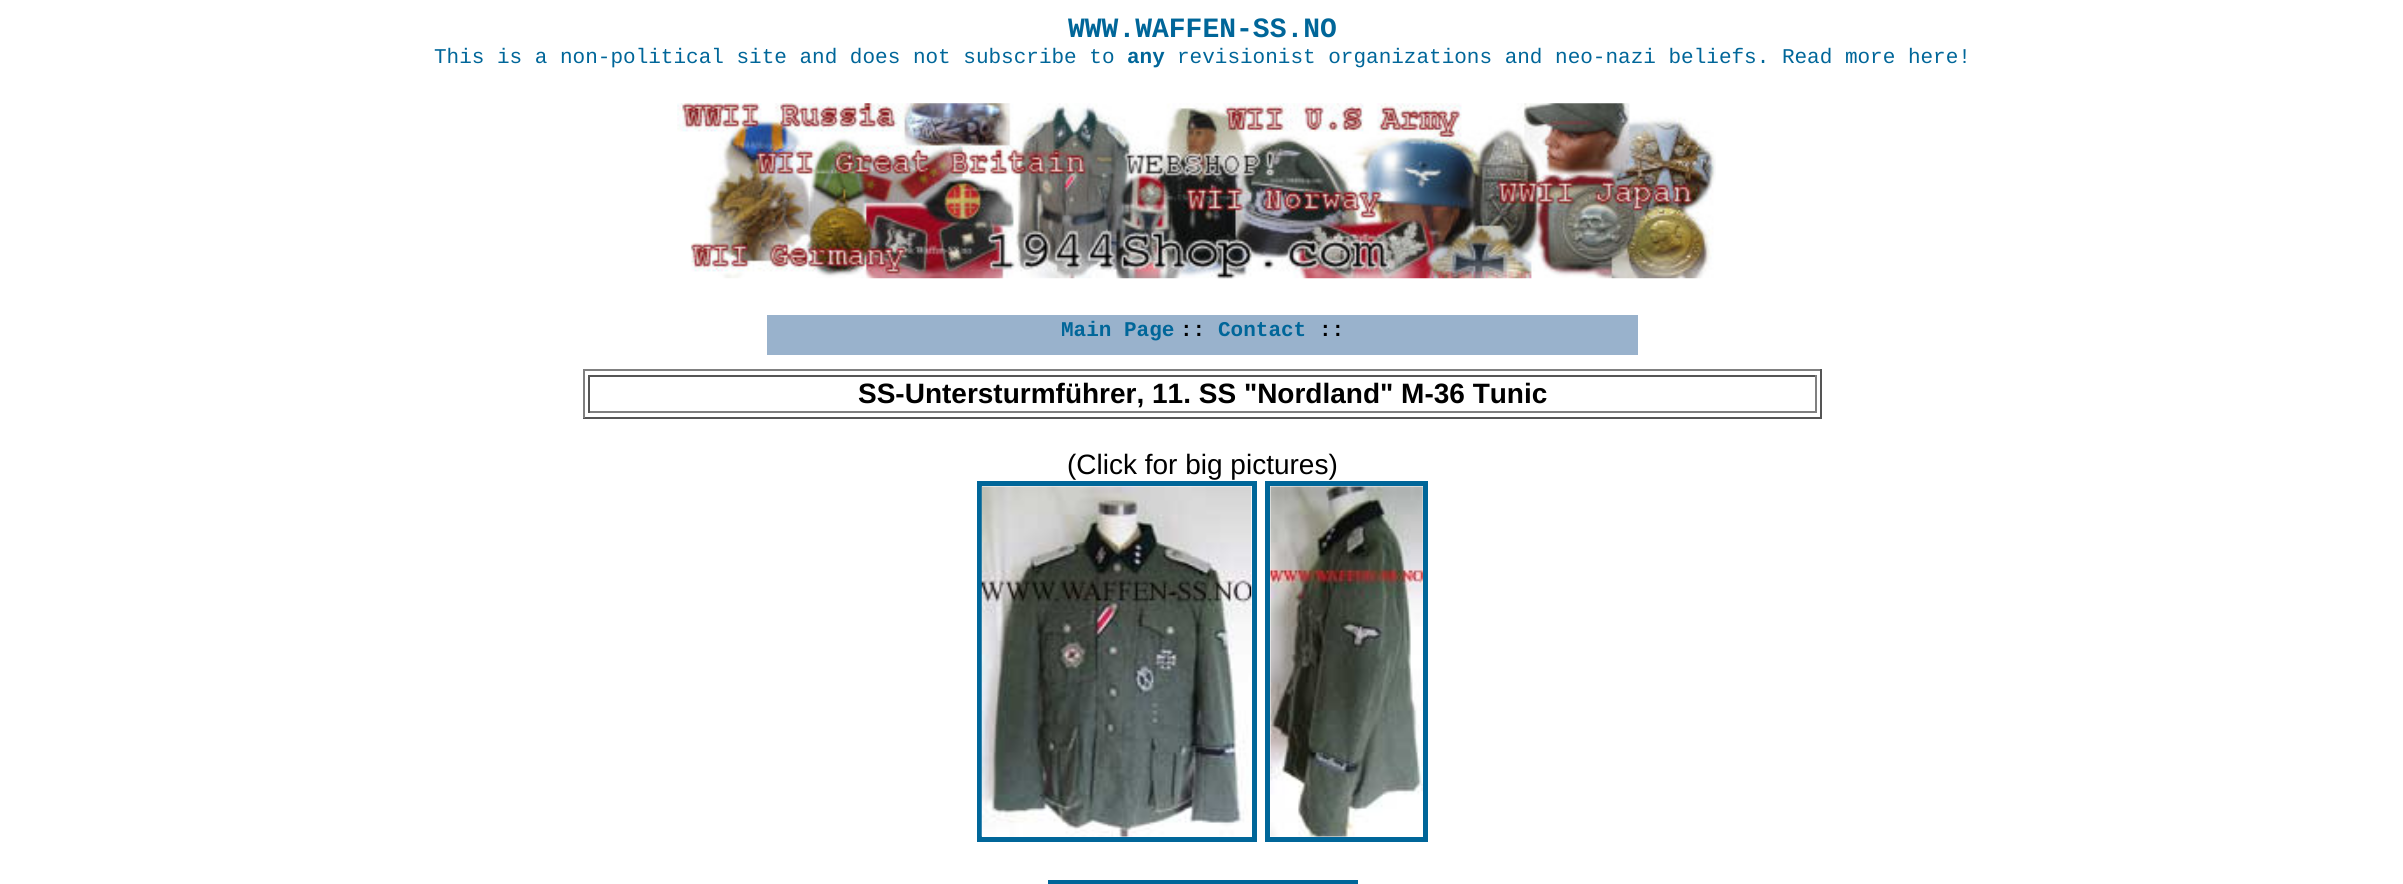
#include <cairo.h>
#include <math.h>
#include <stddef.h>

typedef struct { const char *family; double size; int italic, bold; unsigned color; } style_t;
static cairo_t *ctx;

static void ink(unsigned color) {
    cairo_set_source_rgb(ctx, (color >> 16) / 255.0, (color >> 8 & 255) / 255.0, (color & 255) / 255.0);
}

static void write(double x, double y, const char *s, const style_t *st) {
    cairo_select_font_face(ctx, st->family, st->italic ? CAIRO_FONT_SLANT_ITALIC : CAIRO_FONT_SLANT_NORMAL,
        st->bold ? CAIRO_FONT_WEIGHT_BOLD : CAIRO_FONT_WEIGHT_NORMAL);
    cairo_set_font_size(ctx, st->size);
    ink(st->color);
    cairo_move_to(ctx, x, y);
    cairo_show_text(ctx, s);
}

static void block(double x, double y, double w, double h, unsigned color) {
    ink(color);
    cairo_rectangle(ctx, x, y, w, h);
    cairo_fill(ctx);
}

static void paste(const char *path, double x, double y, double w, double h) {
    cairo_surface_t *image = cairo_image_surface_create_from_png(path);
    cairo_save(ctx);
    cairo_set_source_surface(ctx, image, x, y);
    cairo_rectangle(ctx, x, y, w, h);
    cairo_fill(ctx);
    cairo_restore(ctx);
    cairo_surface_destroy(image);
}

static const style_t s1 = {"Liberation Mono", 28, 0, 1, 0x006699};
static const style_t s2 = {"Liberation Mono", 21, 0, 0, 0x006699};
static const style_t s3 = {"Liberation Mono", 21, 0, 1, 0x006699};
static const style_t s4 = {"Liberation Mono", 21, 0, 1, 0x000000};
static const style_t s5 = {"Liberation Sans", 28, 0, 1, 0x000000};
static const style_t s6 = {"Liberation Sans", 28, 0, 0, 0x000000};

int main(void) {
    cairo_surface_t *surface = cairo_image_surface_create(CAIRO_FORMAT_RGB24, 2403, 884);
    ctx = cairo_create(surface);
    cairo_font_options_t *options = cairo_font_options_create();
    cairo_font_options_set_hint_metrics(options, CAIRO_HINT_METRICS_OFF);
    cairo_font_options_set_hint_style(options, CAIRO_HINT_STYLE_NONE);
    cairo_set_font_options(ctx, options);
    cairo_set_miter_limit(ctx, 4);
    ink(0xffffff);
    cairo_paint(ctx);
    write(1068, 37, "WWW.WAFFEN-SS.NO", &s1);
    write(434, 63, "This is a non-political site and does not subscribe to", &s2);
    write(1127, 63, "any", &s3);
    write(1177, 63, "revisionist organizations and neo-nazi beliefs. Read more here!", &s2);
    paste("pic1.png", 677, 103, 1039, 176);
    block(767, 315, 871, 40, 0x99b2cc);
    write(1061, 336, "Main Page", &s3);
    write(1180, 336, "::", &s4);
    write(1218, 336, "Contact", &s3);
    write(1319, 336, "::", &s4);
    block(583, 369, 1239, 2, 0x808080);
    block(1820, 369, 2, 49, 0x555555);
    block(583, 417, 1239, 2, 0x555555);
    block(583, 369, 2, 49, 0x808080);
    block(588, 375, 1229, 2, 0x555555);
    block(1815, 375, 2, 38, 0x808080);
    block(588, 411, 1229, 2, 0x808080);
    block(588, 375, 2, 38, 0x555555);
    write(858, 403, "SS-Untersturmführer, 11. SS \"Nordland\" M-36 Tunic", &s5);
    write(1067, 474, "(Click for big pictures)", &s6);
    cairo_rectangle(ctx, 979.5, 483.5, 275, 356);
    ink(0x006699);
    cairo_set_line_width(ctx, 5);
    cairo_stroke(ctx);
    cairo_rectangle(ctx, 1267.5, 483.5, 158, 356);
    cairo_stroke(ctx);
    paste("pic2.png", 981, 486, 271, 351);
    paste("pic3.png", 1270, 486, 153, 351);
    cairo_rectangle(ctx, 1050.5, 882.5, 305, 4);
    cairo_stroke(ctx);
    cairo_surface_write_to_png(surface, "screenshot.png");
    cairo_font_options_destroy(options);
    cairo_destroy(ctx);
    cairo_surface_destroy(surface);
    return 0;
}
